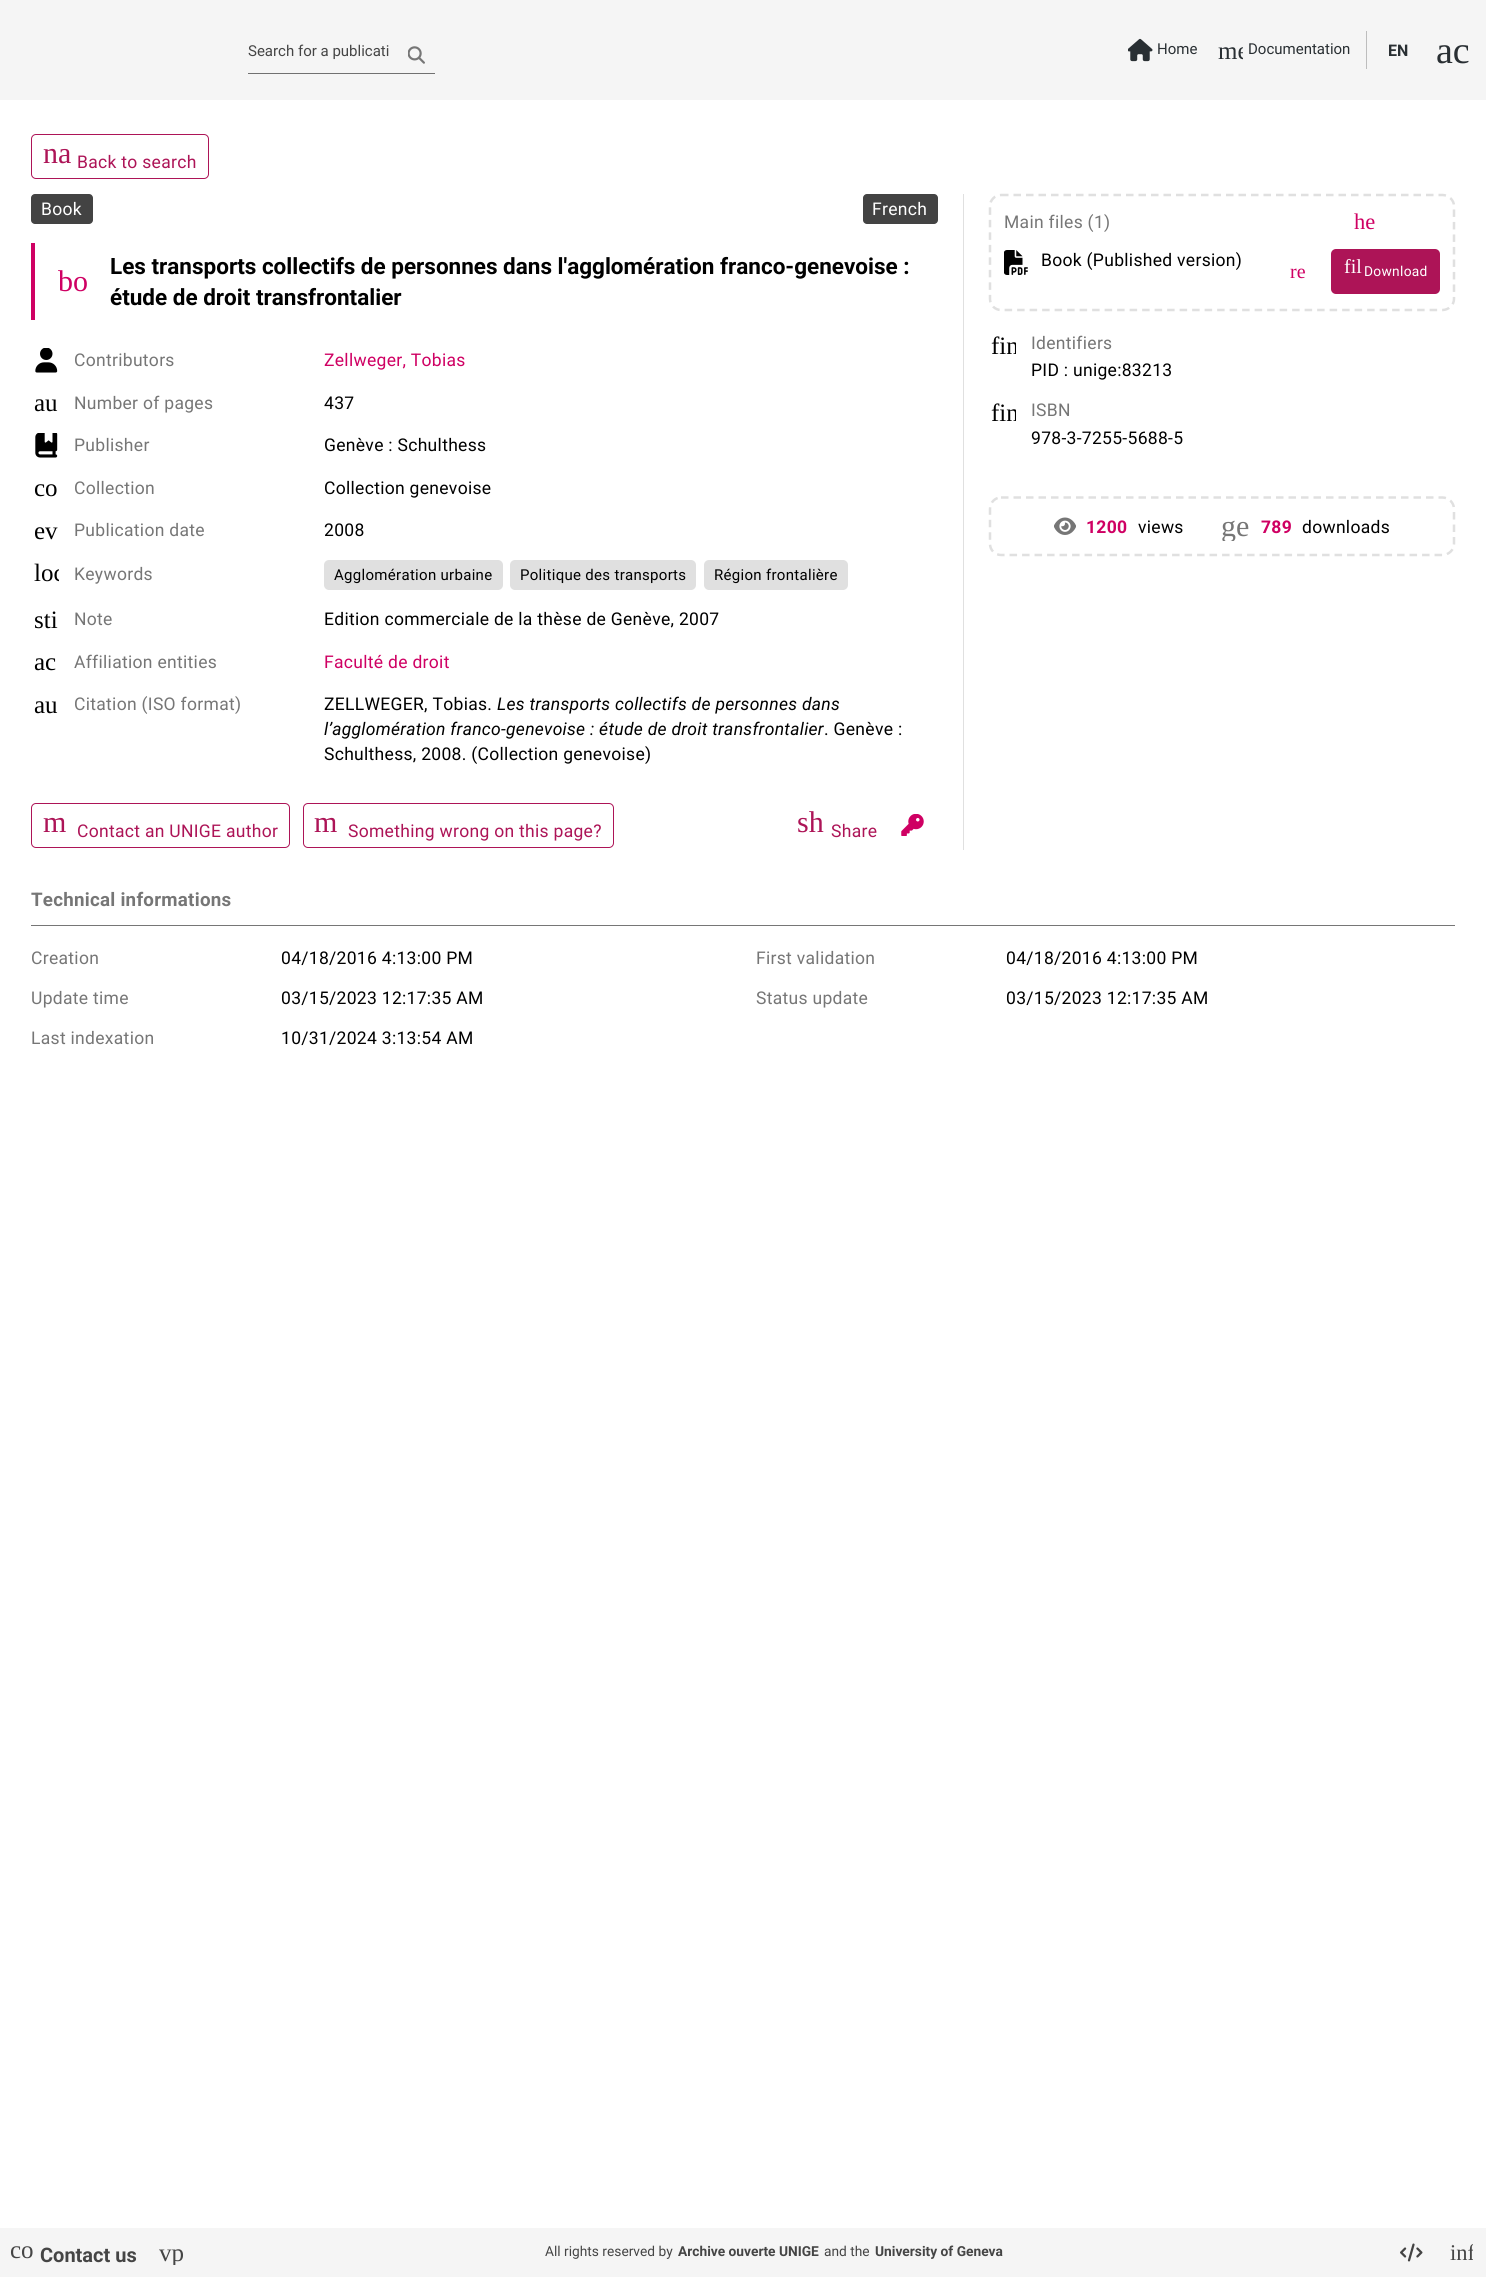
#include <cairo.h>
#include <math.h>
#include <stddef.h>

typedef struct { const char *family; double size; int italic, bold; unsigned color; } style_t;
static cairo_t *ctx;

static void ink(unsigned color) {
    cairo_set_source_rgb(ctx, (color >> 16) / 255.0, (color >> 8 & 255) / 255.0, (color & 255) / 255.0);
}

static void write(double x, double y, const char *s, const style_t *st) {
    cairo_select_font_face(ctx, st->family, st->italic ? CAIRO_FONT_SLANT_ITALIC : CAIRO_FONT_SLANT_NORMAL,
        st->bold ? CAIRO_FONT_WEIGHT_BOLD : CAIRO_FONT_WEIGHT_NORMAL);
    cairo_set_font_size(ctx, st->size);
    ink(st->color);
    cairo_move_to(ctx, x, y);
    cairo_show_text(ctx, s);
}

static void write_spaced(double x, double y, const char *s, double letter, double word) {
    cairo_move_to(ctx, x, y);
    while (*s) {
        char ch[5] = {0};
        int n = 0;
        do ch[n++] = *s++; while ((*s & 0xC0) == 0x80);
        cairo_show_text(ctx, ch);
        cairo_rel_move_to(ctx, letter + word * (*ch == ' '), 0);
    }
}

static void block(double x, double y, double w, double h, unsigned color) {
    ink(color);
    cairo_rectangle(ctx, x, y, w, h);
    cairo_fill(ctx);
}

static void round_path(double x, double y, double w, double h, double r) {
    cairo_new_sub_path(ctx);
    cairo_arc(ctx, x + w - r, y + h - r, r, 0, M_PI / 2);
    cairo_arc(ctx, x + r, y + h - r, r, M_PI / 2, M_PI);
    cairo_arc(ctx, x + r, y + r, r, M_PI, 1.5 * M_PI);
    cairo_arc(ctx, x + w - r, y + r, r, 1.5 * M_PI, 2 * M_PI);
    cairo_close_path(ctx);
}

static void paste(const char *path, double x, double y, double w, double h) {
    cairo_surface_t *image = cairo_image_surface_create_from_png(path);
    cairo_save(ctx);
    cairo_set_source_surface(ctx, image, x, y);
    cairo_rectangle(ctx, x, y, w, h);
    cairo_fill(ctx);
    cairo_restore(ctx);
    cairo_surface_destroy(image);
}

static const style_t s1 = {"Roboto", 15, 0, 0, 0x454545};
static const style_t s2 = {"Roboto", 15, 0, 0, 0x292f33};
static const style_t s3 = {"Liberation Serif", 25, 0, 0, 0x292f33};
static const style_t s4 = {"Roboto", 16, 0, 1, 0x292f33};
static const style_t s5 = {"Liberation Serif", 38, 0, 0, 0x292f33};
static const style_t s6 = {"Liberation Serif", 30, 0, 0, 0xad1457};
static const style_t s7 = {"Liberation Serif", 30, 0, 0, 0xcf0063};
static const style_t s8 = {"Roboto", 22.5, 0, 1, 0x000000};
static const style_t s9 = {"Liberation Serif", 25, 0, 0, 0x000000};
static const style_t s10 = {"Liberation Serif", 22.5, 0, 0, 0xcf0063};
static const style_t s11 = {"Liberation Serif", 20, 0, 0, 0xcf0063};
static const style_t s12 = {"Liberation Serif", 20, 0, 0, 0xffffff};
static const style_t s13 = {"Liberation Serif", 30, 0, 0, 0x767676};
static const style_t s14 = {"Liberation Serif", 25, 0, 0, 0x454545};
static const style_t s15 = {"Roboto", 20, 0, 1, 0x454545};
static const style_t s16 = {"Roboto", 13.75, 0, 0, 0x454545};
static const style_t s17 = {"Roboto", 13.75, 0, 1, 0x454545};
static const style_t s18 = {"Liberation Serif", 22.5, 0, 0, 0x454545};

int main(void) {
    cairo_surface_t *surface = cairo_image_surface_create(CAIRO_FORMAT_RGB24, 1486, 2277);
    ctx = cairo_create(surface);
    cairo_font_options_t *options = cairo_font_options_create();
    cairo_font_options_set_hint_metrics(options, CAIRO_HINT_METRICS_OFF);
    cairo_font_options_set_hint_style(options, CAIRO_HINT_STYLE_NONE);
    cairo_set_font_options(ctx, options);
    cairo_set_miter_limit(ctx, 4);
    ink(0xffffff);
    cairo_paint(ctx);
    block(0, 0, 1486, 100, 0xf5f5f5);
    write(248, 56, "Search for a publicati", &s1);
    paste("pic1.png", 408, 46, 17, 18);
    block(248, 73, 187, 1, 0x717171);
    paste("pic2.png", 1128, 38, 25, 24);
    write(1157, 54, "Home", &s2);
    cairo_save(ctx);
    cairo_rectangle(ctx, 1218, 38, 25, 25);
    cairo_clip(ctx);
    write(1218, 59, "me", &s3);
    cairo_restore(ctx);
    write(1248, 54, "Documentation", &s2);
    block(1366, 31, 1, 38, 0xbdbdbd);
    write(1388, 56, "EN", &s4);
    write(1436, 63, "ac", &s5);
    round_path(31.5, 134.5, 177, 44, 4.5);
    ink(0xad1457);
    cairo_set_line_width(ctx, 1);
    cairo_stroke(ctx);
    write(43, 163, "na", &s6);
    cairo_select_font_face(ctx, "Roboto", CAIRO_FONT_SLANT_NORMAL, CAIRO_FONT_WEIGHT_NORMAL);
    cairo_set_font_size(ctx, 17.5);
    write_spaced(77, 168, "Back to search", 0.3, 0);
    block(963, 194, 1, 656, 0xe0e0e0);
    ink(0x434343);
    round_path(31, 194, 62, 30, 4);
    cairo_fill(ctx);
    ink(0xffffff);
    write_spaced(41, 215, "Book", 0.3, 0);
    ink(0x434343);
    round_path(863, 194, 75, 30, 4);
    cairo_fill(ctx);
    ink(0xffffff);
    write_spaced(872, 215, "French", 0.3, 0);
    block(31, 243, 4, 77, 0xcf0063);
    write(58, 291, "bo", &s7);
    write(110, 274, "Les transports collectifs de personnes dans l'agglomération franco-genevoise :", &s8);
    write(110, 305, "étude de droit transfrontalier", &s8);
    paste("pic3.png", 35, 348, 23, 25);
    cairo_select_font_face(ctx, "Roboto", CAIRO_FONT_SLANT_NORMAL, CAIRO_FONT_WEIGHT_NORMAL);
    cairo_set_font_size(ctx, 17.5);
    ink(0x767676);
    write_spaced(74, 366, "Contributors", 0.3, 0);
    ink(0xcf0063);
    write_spaced(324, 366, "Zellweger, Tobias", 0.3, 0);
    write(34, 411, "au", &s9);
    cairo_select_font_face(ctx, "Roboto", CAIRO_FONT_SLANT_NORMAL, CAIRO_FONT_WEIGHT_NORMAL);
    cairo_set_font_size(ctx, 17.5);
    ink(0x767676);
    write_spaced(74, 409, "Number of pages", 0.3, 0);
    ink(0x000000);
    write_spaced(324, 409, "437", 0.3, 0);
    paste("pic4.png", 35, 433, 23, 25);
    ink(0x767676);
    write_spaced(74, 451, "Publisher", 0.3, 0);
    ink(0x000000);
    write_spaced(324, 451, "Genève : Schulthess", 0.3, 0);
    write(34, 496, "co", &s9);
    cairo_select_font_face(ctx, "Roboto", CAIRO_FONT_SLANT_NORMAL, CAIRO_FONT_WEIGHT_NORMAL);
    cairo_set_font_size(ctx, 17.5);
    ink(0x767676);
    write_spaced(74, 494, "Collection", 0.3, 0);
    ink(0x000000);
    write_spaced(324, 494, "Collection genevoise", 0.3, 0);
    write(34, 539, "ev", &s9);
    cairo_select_font_face(ctx, "Roboto", CAIRO_FONT_SLANT_NORMAL, CAIRO_FONT_WEIGHT_NORMAL);
    cairo_set_font_size(ctx, 17.5);
    ink(0x767676);
    write_spaced(74, 536, "Publication date", 0.3, 0);
    ink(0x000000);
    write_spaced(324, 536, "2008", 0.3, 0);
    cairo_save(ctx);
    cairo_rectangle(ctx, 34, 560, 25, 25);
    cairo_clip(ctx);
    write(34, 581, "loc", &s9);
    cairo_restore(ctx);
    ink(0x767676);
    write_spaced(74, 580, "Keywords", 0.3, 0);
    ink(0xe0e0e0);
    round_path(324, 560, 179, 30, 5);
    cairo_fill(ctx);
    cairo_set_font_size(ctx, 15);
    ink(0x000000);
    write_spaced(334, 580, "Agglomération urbaine", 0.3, 0);
    ink(0xe0e0e0);
    round_path(510, 560, 186, 30, 5);
    cairo_fill(ctx);
    ink(0x000000);
    write_spaced(520, 580, "Politique des transports", 0.3, 0);
    ink(0xe0e0e0);
    round_path(704, 560, 144, 30, 5);
    cairo_fill(ctx);
    ink(0x000000);
    write_spaced(714, 580, "Région frontalière", 0.3, 0);
    write(34, 628, "sti", &s9);
    cairo_select_font_face(ctx, "Roboto", CAIRO_FONT_SLANT_NORMAL, CAIRO_FONT_WEIGHT_NORMAL);
    cairo_set_font_size(ctx, 17.5);
    ink(0x767676);
    write_spaced(74, 625, "Note", 0.3, 0);
    ink(0x000000);
    write_spaced(324, 625, "Edition commerciale de la thèse de Genève, 2007", 0.3, 0);
    write(34, 670, "ac", &s9);
    cairo_select_font_face(ctx, "Roboto", CAIRO_FONT_SLANT_NORMAL, CAIRO_FONT_WEIGHT_NORMAL);
    cairo_set_font_size(ctx, 17.5);
    ink(0x767676);
    write_spaced(74, 668, "Affiliation entities", 0.3, 0);
    ink(0xcf0063);
    write_spaced(324, 668, "Faculté de droit", 0.3, 0);
    write(34, 713, "au", &s9);
    cairo_select_font_face(ctx, "Roboto", CAIRO_FONT_SLANT_NORMAL, CAIRO_FONT_WEIGHT_NORMAL);
    cairo_set_font_size(ctx, 17.5);
    ink(0x767676);
    write_spaced(74, 710, "Citation (ISO format)", 0.3, 0);
    ink(0x000000);
    write_spaced(324, 710, "ZELLWEGER, Tobias.", 0.3, 0);
    cairo_select_font_face(ctx, "Roboto", CAIRO_FONT_SLANT_ITALIC, CAIRO_FONT_WEIGHT_NORMAL);
    write_spaced(497, 710, "Les transports collectifs de personnes dans", 0.3, 0);
    write_spaced(324, 735, "l’agglomération franco-genevoise : étude de droit transfrontalier", 0.3, 0);
    cairo_select_font_face(ctx, "Roboto", CAIRO_FONT_SLANT_NORMAL, CAIRO_FONT_WEIGHT_NORMAL);
    write_spaced(824, 735, ". Genève :", 0.3, 0);
    write_spaced(324, 760, "Schulthess, 2008. (Collection genevoise)", 0.3, 0);
    round_path(31.5, 803.5, 258, 44, 4.5);
    ink(0xad1457);
    cairo_stroke(ctx);
    write(43, 832, "m", &s6);
    cairo_select_font_face(ctx, "Roboto", CAIRO_FONT_SLANT_NORMAL, CAIRO_FONT_WEIGHT_NORMAL);
    cairo_set_font_size(ctx, 17.5);
    write_spaced(77, 837, "Contact an UNIGE author", 0.3, 0);
    round_path(303.5, 803.5, 310, 44, 4.5);
    cairo_stroke(ctx);
    write(314, 832, "m", &s6);
    cairo_select_font_face(ctx, "Roboto", CAIRO_FONT_SLANT_NORMAL, CAIRO_FONT_WEIGHT_NORMAL);
    cairo_set_font_size(ctx, 17.5);
    write_spaced(348, 837, "Something wrong on this page?", 0.3, 0);
    write(797, 832, "sh", &s6);
    cairo_select_font_face(ctx, "Roboto", CAIRO_FONT_SLANT_NORMAL, CAIRO_FONT_WEIGHT_NORMAL);
    cairo_set_font_size(ctx, 17.5);
    write_spaced(831, 837, "Share", 0.3, 0);
    paste("pic5.png", 901, 814, 23, 22);
    cairo_new_path(ctx);
    cairo_move_to(ctx, 1001, 195);
    cairo_line_to(ctx, 1442.5, 195);
    cairo_curve_to(ctx, 1448.5, 195, 1454, 200, 1454, 206);
    cairo_line_to(ctx, 1454, 299);
    cairo_curve_to(ctx, 1454, 305, 1448.5, 310, 1442.5, 310);
    cairo_line_to(ctx, 1001, 310);
    cairo_curve_to(ctx, 995, 310, 990, 305, 990, 299);
    cairo_line_to(ctx, 990, 206);
    cairo_curve_to(ctx, 990, 200, 995, 195, 1001, 195);
    cairo_close_path(ctx);
    ink(0xe0e0e0);
    cairo_set_line_width(ctx, 2.5);
    cairo_set_dash(ctx, (double[]){7.5, 5}, 2, 0);
    cairo_stroke(ctx);
    ink(0x767676);
    write_spaced(1004, 228, "Main files (1)", 0.3, 0);
    write(1354, 229, "he", &s10);
    paste("pic6.png", 1004, 250, 24, 25);
    cairo_select_font_face(ctx, "Roboto", CAIRO_FONT_SLANT_NORMAL, CAIRO_FONT_WEIGHT_NORMAL);
    cairo_set_font_size(ctx, 17.5);
    ink(0x000000);
    write_spaced(1041, 266, "Book (Published version)", 0.3, 0);
    write(1290, 278, "re", &s11);
    ink(0xad1457);
    round_path(1331, 249, 109, 45, 5);
    cairo_fill(ctx);
    write(1344, 273, "fil", &s12);
    cairo_select_font_face(ctx, "Roboto", CAIRO_FONT_SLANT_NORMAL, CAIRO_FONT_WEIGHT_NORMAL);
    cairo_set_font_size(ctx, 13.75);
    write_spaced(1364, 276, "Download", 0.3, 0);
    cairo_save(ctx);
    cairo_rectangle(ctx, 991, 333, 25, 25);
    cairo_clip(ctx);
    write(991, 354, "fin", &s9);
    cairo_restore(ctx);
    cairo_set_font_size(ctx, 17.5);
    ink(0x767676);
    write_spaced(1031, 349, "Identifiers", 0.3, 0);
    ink(0x000000);
    write_spaced(1031, 376, "PID : unige:83213", 0.3, 0);
    cairo_save(ctx);
    cairo_rectangle(ctx, 991, 400, 25, 25);
    cairo_clip(ctx);
    write(991, 421, "fin", &s9);
    cairo_restore(ctx);
    ink(0x767676);
    write_spaced(1031, 416, "ISBN", 0.3, 0);
    ink(0x000000);
    write_spaced(1031, 444, "978-3-7255-5688-5", 0.3, 0);
    cairo_new_path(ctx);
    cairo_move_to(ctx, 1001, 497.5);
    cairo_line_to(ctx, 1442.5, 497.5);
    cairo_curve_to(ctx, 1448.5, 497.5, 1454, 502.5, 1454, 509);
    cairo_line_to(ctx, 1454, 544);
    cairo_curve_to(ctx, 1454, 550, 1448.5, 555, 1442.5, 555);
    cairo_line_to(ctx, 1001, 555);
    cairo_curve_to(ctx, 995, 555, 990, 550, 990, 544);
    cairo_line_to(ctx, 990, 509);
    cairo_curve_to(ctx, 990, 502.5, 995, 497.5, 1001, 497.5);
    cairo_close_path(ctx);
    ink(0xe0e0e0);
    cairo_stroke(ctx);
    paste("pic7.png", 1054, 517, 22, 18);
    cairo_select_font_face(ctx, "Roboto", CAIRO_FONT_SLANT_NORMAL, CAIRO_FONT_WEIGHT_BOLD);
    ink(0xcf0063);
    write_spaced(1086, 533, "1200", 0.3, 0);
    cairo_select_font_face(ctx, "Roboto", CAIRO_FONT_SLANT_NORMAL, CAIRO_FONT_WEIGHT_NORMAL);
    ink(0x000000);
    write_spaced(1138, 533, "views", 0.3, 0);
    cairo_save(ctx);
    cairo_rectangle(ctx, 1221, 511, 30, 30);
    cairo_clip(ctx);
    write(1221, 536, "ge", &s13);
    cairo_restore(ctx);
    cairo_select_font_face(ctx, "Roboto", CAIRO_FONT_SLANT_NORMAL, CAIRO_FONT_WEIGHT_BOLD);
    ink(0xcf0063);
    write_spaced(1261, 533, "789", 0.3, 0);
    cairo_select_font_face(ctx, "Roboto", CAIRO_FONT_SLANT_NORMAL, CAIRO_FONT_WEIGHT_NORMAL);
    ink(0x000000);
    write_spaced(1302, 533, "downloads", 0.3, 0);
    block(31, 925, 1424, 1, 0x767676);
    cairo_select_font_face(ctx, "Roboto", CAIRO_FONT_SLANT_NORMAL, CAIRO_FONT_WEIGHT_BOLD);
    cairo_set_font_size(ctx, 18.75);
    write_spaced(31, 906, "Technical informations", 0.25, 0);
    cairo_select_font_face(ctx, "Roboto", CAIRO_FONT_SLANT_NORMAL, CAIRO_FONT_WEIGHT_NORMAL);
    cairo_set_font_size(ctx, 17.5);
    write_spaced(31, 964, "Creation", 0.3, 0);
    ink(0x000000);
    write_spaced(281, 964, "04/18/2016 4:13:00 PM", 0.3, 0);
    ink(0x767676);
    write_spaced(756, 964, "First validation", 0.3, 0);
    ink(0x000000);
    write_spaced(1006, 964, "04/18/2016 4:13:00 PM", 0.3, 0);
    ink(0x767676);
    write_spaced(31, 1004, "Update time", 0.3, 0);
    ink(0x000000);
    write_spaced(281, 1004, "03/15/2023 12:17:35 AM", 0.3, 0);
    ink(0x767676);
    write_spaced(756, 1004, "Status update", 0.3, 0);
    ink(0x000000);
    write_spaced(1006, 1004, "03/15/2023 12:17:35 AM", 0.3, 0);
    ink(0x767676);
    write_spaced(31, 1044, "Last indexation", 0.3, 0);
    ink(0x000000);
    write_spaced(281, 1044, "10/31/2024 3:13:54 AM", 0.3, 0);
    block(0, 2228, 1486, 49, 0xf5f5f5);
    write(10, 2258, "co", &s14);
    write(40, 2262, "Contact us", &s15);
    cairo_save(ctx);
    cairo_rectangle(ctx, 159, 2240, 25, 25);
    cairo_clip(ctx);
    write(159, 2261, "vp", &s14);
    cairo_restore(ctx);
    write(545, 2256, "All rights reserved by", &s16);
    write(678, 2256, "Archive ouverte UNIGE", &s17);
    write(824, 2256, "and the", &s16);
    write(875, 2256, "University of Geneva", &s17);
    paste("pic8.png", 1400, 2243, 23, 19);
    cairo_save(ctx);
    cairo_rectangle(ctx, 1450, 2241, 23, 23);
    cairo_clip(ctx);
    write(1450, 2260, "inf", &s18);
    cairo_restore(ctx);
    cairo_surface_write_to_png(surface, "screenshot.png");
    cairo_font_options_destroy(options);
    cairo_destroy(ctx);
    cairo_surface_destroy(surface);
    return 0;
}
